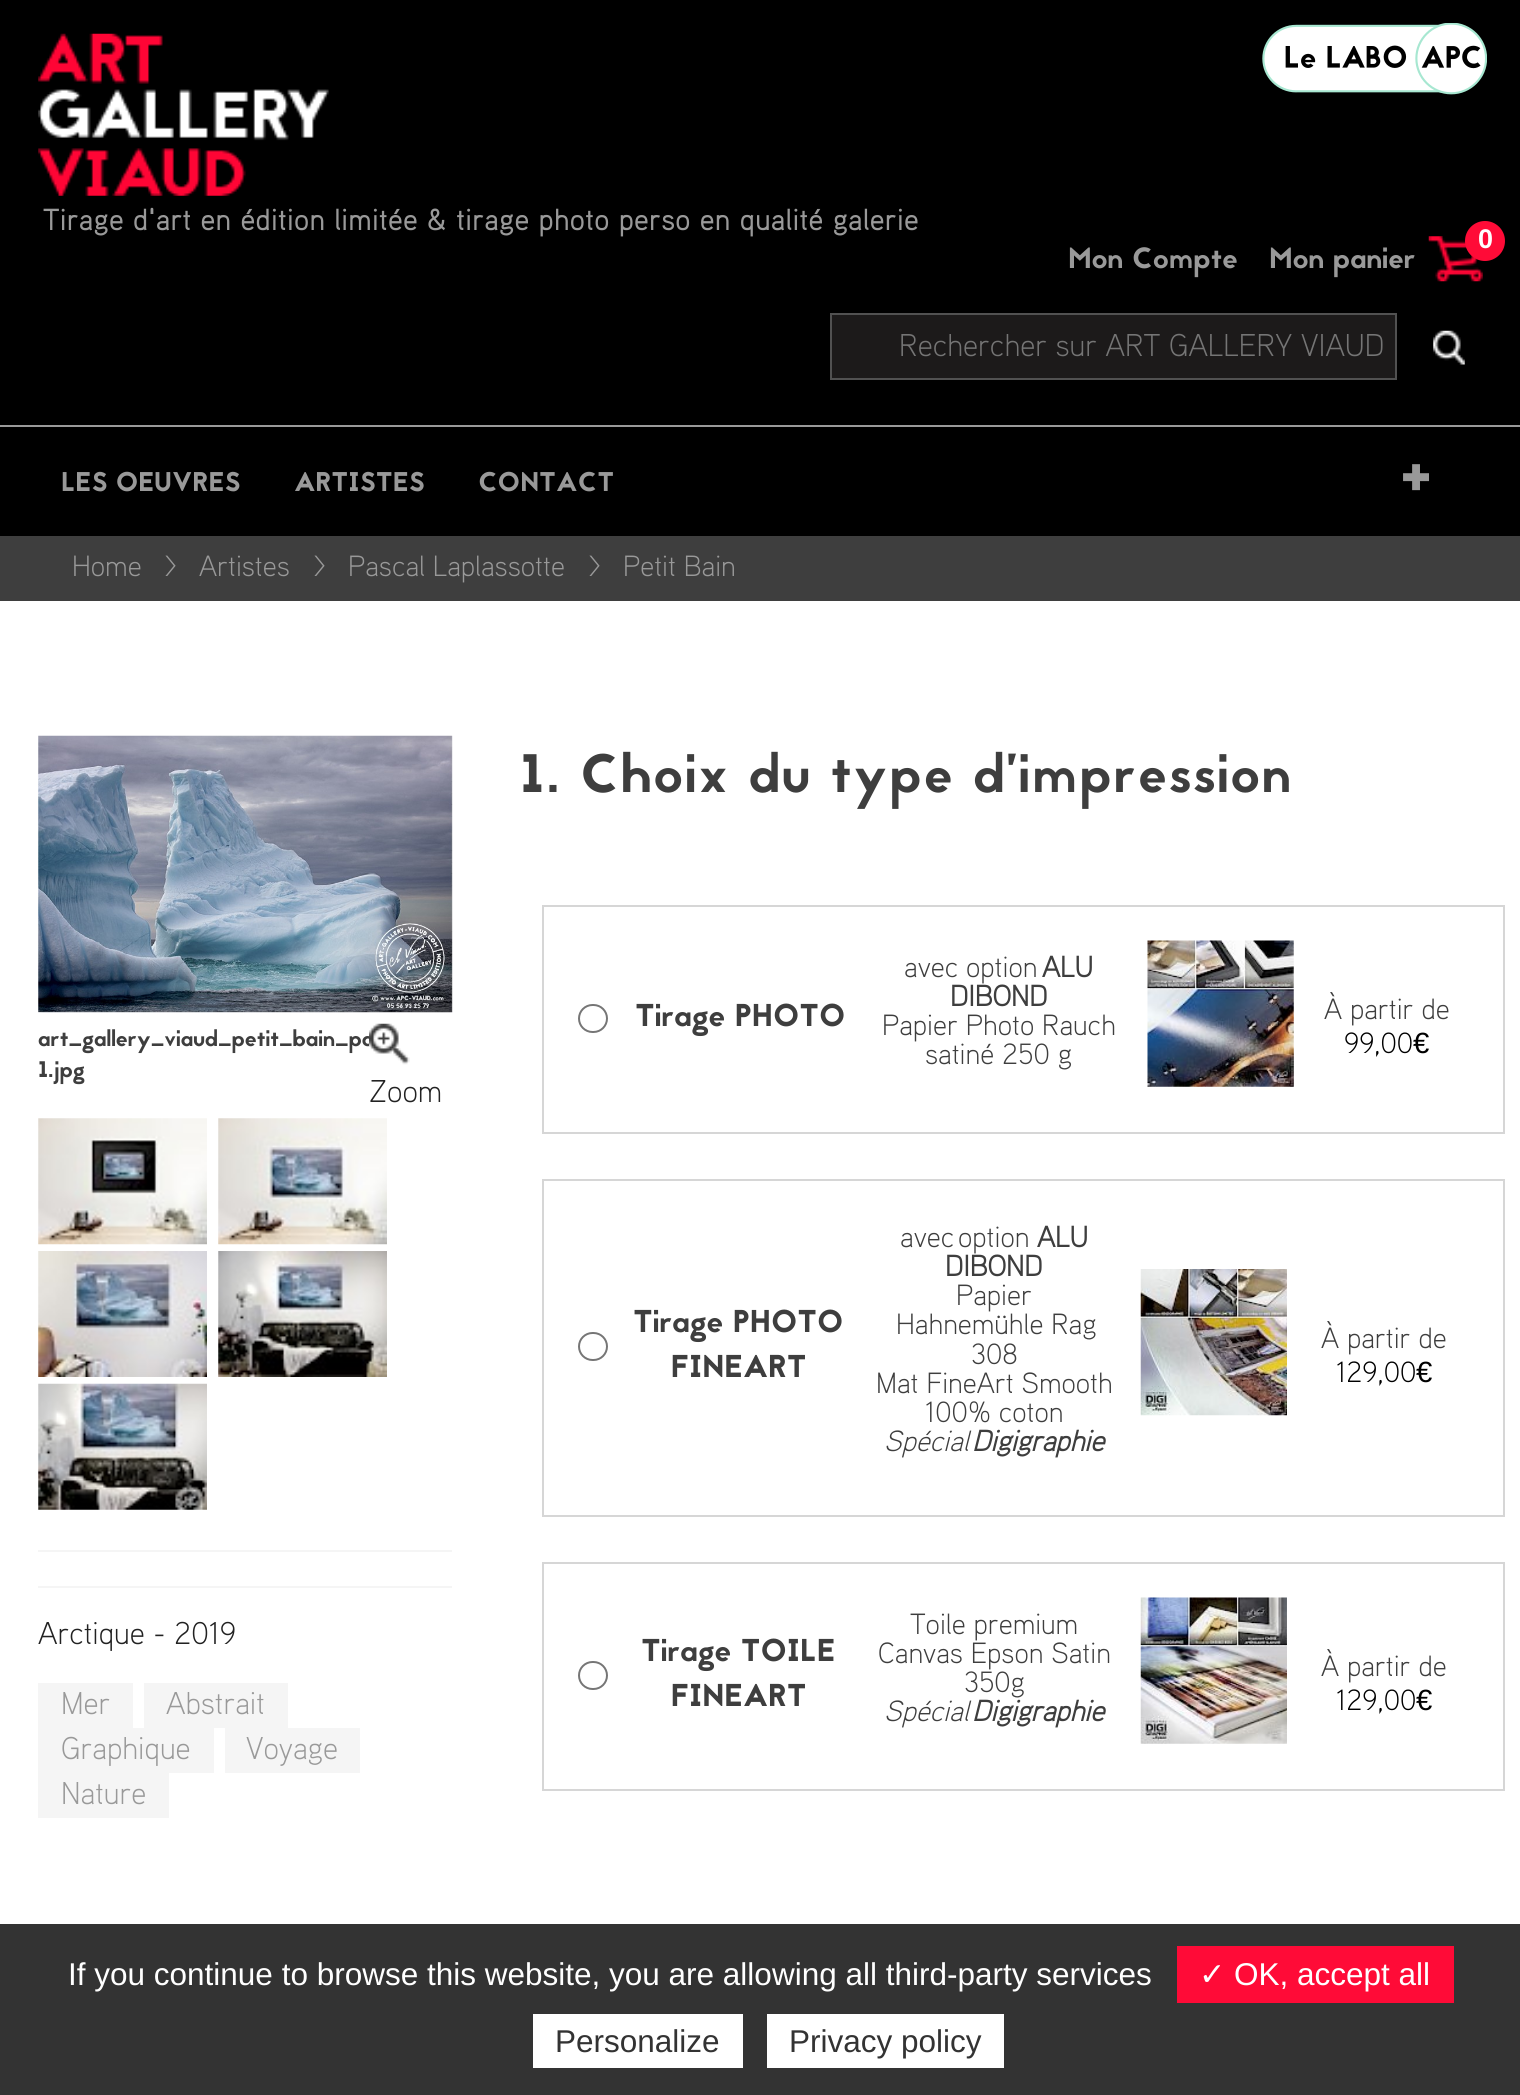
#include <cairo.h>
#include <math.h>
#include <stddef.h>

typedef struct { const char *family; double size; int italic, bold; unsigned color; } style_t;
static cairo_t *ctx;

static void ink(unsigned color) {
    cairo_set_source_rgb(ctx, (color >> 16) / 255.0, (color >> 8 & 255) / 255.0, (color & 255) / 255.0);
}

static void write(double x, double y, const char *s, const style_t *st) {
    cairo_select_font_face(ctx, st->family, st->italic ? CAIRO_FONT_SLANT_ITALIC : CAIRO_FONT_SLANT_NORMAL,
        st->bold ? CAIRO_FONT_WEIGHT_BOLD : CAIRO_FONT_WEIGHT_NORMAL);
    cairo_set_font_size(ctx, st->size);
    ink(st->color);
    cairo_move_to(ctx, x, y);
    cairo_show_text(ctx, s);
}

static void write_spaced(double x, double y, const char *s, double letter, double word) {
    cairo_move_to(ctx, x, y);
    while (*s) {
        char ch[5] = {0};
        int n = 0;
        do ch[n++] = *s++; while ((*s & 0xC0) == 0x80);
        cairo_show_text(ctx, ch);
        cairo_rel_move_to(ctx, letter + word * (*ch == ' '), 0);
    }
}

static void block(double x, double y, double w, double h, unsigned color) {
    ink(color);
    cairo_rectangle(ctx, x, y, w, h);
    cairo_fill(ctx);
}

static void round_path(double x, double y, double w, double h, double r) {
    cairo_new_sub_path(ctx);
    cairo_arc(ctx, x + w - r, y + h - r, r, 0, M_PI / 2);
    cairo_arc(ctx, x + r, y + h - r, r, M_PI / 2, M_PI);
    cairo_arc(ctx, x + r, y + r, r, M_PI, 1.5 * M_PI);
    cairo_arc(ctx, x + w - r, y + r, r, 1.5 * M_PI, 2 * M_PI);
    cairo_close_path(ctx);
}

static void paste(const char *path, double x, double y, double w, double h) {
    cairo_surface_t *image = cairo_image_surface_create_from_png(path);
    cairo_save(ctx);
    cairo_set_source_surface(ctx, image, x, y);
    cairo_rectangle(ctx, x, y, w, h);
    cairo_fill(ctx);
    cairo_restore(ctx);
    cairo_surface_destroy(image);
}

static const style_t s1 = {"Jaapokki", 29.25, 0, 0, 0x999999};
static const style_t s2 = {"Liberation Sans", 27, 0, 1, 0xffffff};
static const style_t s3 = {"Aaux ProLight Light", 31.5, 0, 0, 0x757575};
static const style_t s4 = {"Jaapokki", 27, 0, 0, 0x999999};
static const style_t s5 = {"Jaapokki", 68, 0, 0, 0x999999};
static const style_t s6 = {"Aaux ProLight Light", 29.25, 0, 0, 0x999999};
static const style_t s7 = {"Jaapokki", 22.5, 0, 0, 0x3e3e3e};
static const style_t s8 = {"Aaux ProLight Light", 31.5, 0, 0, 0x222222};
static const style_t s9 = {"Aaux ProLight Light", 31.5, 0, 0, 0x999999};
static const style_t s10 = {"Jaapokki", 31.5, 0, 0, 0x3e3e3e};
static const style_t s11 = {"Aaux ProLight Light", 29.25, 0, 0, 0x3e3e3e};
static const style_t s12 = {"Aaux ProLight", 29.25, 0, 1, 0x3e3e3e};
static const style_t s13 = {"Aaux ProLight Light", 29.25, 0, 0, 0x000000};
static const style_t s14 = {"Liberation Sans", 29.25, 0, 0, 0x000000};
static const style_t s15 = {"Aaux ProLight Light", 29.25, 1, 0, 0x3e3e3e};
static const style_t s16 = {"Aaux ProLight", 29.25, 1, 1, 0x3e3e3e};
static const style_t s17 = {"Liberation Sans", 31.5, 0, 0, 0xffffff};
static const style_t s18 = {"DejaVu Sans", 31.5, 0, 0, 0xffffff};
static const style_t s19 = {"Liberation Sans", 31.5, 0, 0, 0x333333};

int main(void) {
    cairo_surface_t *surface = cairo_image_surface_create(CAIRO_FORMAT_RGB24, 1520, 2095);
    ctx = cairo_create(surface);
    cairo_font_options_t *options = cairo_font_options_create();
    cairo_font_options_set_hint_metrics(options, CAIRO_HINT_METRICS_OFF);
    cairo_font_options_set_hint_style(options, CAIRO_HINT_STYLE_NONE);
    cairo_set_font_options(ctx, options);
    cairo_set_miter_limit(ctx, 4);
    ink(0xffffff);
    cairo_paint(ctx);
    block(0, 0, 1520, 536, 0x000000);
    block(0, 425, 1520, 2, 0x999999);
    paste("pic1.png", 38, 33, 291, 163);
    cairo_select_font_face(ctx, "Aaux ProLight", CAIRO_FONT_SLANT_NORMAL, CAIRO_FONT_WEIGHT_BOLD);
    cairo_set_font_size(ctx, 29.25);
    write_spaced(43, 230, "Tirage d'art en édition limitée & tirage photo perso en qualité galerie", 1.12, 0);
    paste("pic2.png", 1262, 23, 225, 72);
    write(1068, 268, "Mon Compte", &s1);
    write(1269, 268, "Mon panier", &s1);
    paste("pic3.png", 1428, 236, 55, 46);
    ink(0xff0b37);
    cairo_arc(ctx, 1485, 241, 20, 0, 2 * M_PI);
    cairo_fill(ctx);
    write(1478, 248, "0", &s2);
    ink(0x1c1a1a);
    cairo_rectangle(ctx, 831, 314, 565, 65);
    cairo_fill_preserve(ctx);
    ink(0x515151);
    cairo_stroke(ctx);
    write(899, 356, "Rechercher sur ART GALLERY VIAUD", &s3);
    paste("pic4.png", 1433, 330, 32, 35);
    write(61, 491, "LES OEUVRES", &s4);
    write(294, 491, "ARTISTES", &s4);
    write(478, 491, "CONTACT", &s4);
    write(1400, 493, "+", &s5);
    block(0, 536, 1520, 65, 0x3e3e3e);
    write(72, 576, "Home", &s6);
    write(164, 576, ">", &s6);
    write(199, 576, "Artistes", &s6);
    write(313, 576, ">", &s6);
    write(348, 576, "Pascal Laplassotte", &s6);
    write(588, 576, ">", &s6);
    write(623, 576, "Petit Bain", &s6);
    paste("pic5.png", 38, 735, 415, 278);
    cairo_save(ctx);
    cairo_rectangle(ctx, 38, 1024, 331, 72);
    cairo_clip(ctx);
    write(38, 1046, "art_gallery_viaud_petit_bain_pa", &s7);
    cairo_restore(ctx);
    write(38, 1077, "1.jpg", &s7);
    paste("pic6.png", 369, 1023, 41, 42);
    write(369, 1102, "Zoom", &s8);
    paste("pic7.png", 38, 1118, 169, 127);
    paste("pic8.png", 218, 1118, 169, 127);
    paste("pic9.png", 38, 1251, 169, 126);
    paste("pic10.png", 218, 1251, 169, 126);
    paste("pic11.png", 38, 1383, 169, 127);
    block(38, 1550, 414, 2, 0xf5f5f5);
    block(38, 1586, 414, 2, 0xf5f5f5);
    write(38, 1644, "Arctique - 2019", &s8);
    block(38, 1683, 95, 45, 0xf5f5f5);
    write(61, 1714, "Mer", &s9);
    block(144, 1683, 144, 45, 0xf5f5f5);
    write(166, 1714, "Abstrait", &s9);
    block(38, 1728, 176, 45, 0xf5f5f5);
    write(61, 1759, "Graphique", &s9);
    block(225, 1728, 135, 45, 0xf5f5f5);
    write(246, 1759, "Voyage", &s9);
    block(38, 1773, 131, 45, 0xf5f5f5);
    write(61, 1804, "Nature", &s9);
    cairo_select_font_face(ctx, "Jaapokki", CAIRO_FONT_SLANT_NORMAL, CAIRO_FONT_WEIGHT_NORMAL);
    cairo_set_font_size(ctx, 54);
    ink(0x3e3e3e);
    write_spaced(520, 792, "1. Choix du type d’impression", 2.25, 0);
    cairo_rectangle(ctx, 543, 906, 961, 227);
    ink(0xd6d6d6);
    cairo_stroke(ctx);
    round_path(579, 1005, 28, 27, 13.5);
    ink(0x767676);
    cairo_stroke(ctx);
    write(635, 1026, "Tirage PHOTO", &s10);
    write(904, 977, "avec option", &s11);
    write(1042, 977, "ALU", &s12);
    write(950, 1006, "DIBOND", &s12);
    write(882, 1035, "Papier Photo Rauch", &s11);
    write(925, 1064, "satiné 250 g", &s11);
    paste("pic12.png", 1147, 940, 147, 147);
    write(1324, 1019, "À partir de", &s11);
    write(1344, 1053, "99,00", &s13);
    write(1413, 1053, "€", &s14);
    cairo_rectangle(ctx, 543, 1180, 961, 336);
    ink(0xd6d6d6);
    cairo_stroke(ctx);
    round_path(579, 1333, 28, 27, 13.5);
    ink(0x767676);
    cairo_stroke(ctx);
    write(633, 1332, "Tirage PHOTO", &s10);
    write(671, 1377, "FINEART", &s10);
    write(900, 1247, "avec", &s11);
    write(958, 1247, "option", &s11);
    write(1037, 1247, "ALU", &s12);
    write(945, 1276, "DIBOND", &s12);
    write(956, 1305, "Papier", &s11);
    write(896, 1334, "Hahnemühle Rag", &s11);
    write(971, 1364, "308", &s11);
    write(876, 1393, "Mat FineArt Smooth", &s11);
    write(925, 1422, "100% coton", &s11);
    write(884, 1451, "Spécial", &s15);
    write(972, 1451, "Digigraphie", &s16);
    paste("pic13.png", 1140, 1269, 147, 147);
    write(1321, 1348, "À partir de", &s11);
    write(1336, 1382, "129,00", &s13);
    write(1416, 1382, "€", &s14);
    cairo_rectangle(ctx, 543, 1563, 961, 227);
    ink(0xd6d6d6);
    cairo_stroke(ctx);
    round_path(579, 1662, 28, 27, 13.5);
    ink(0x767676);
    cairo_stroke(ctx);
    write(641, 1661, "Tirage TOILE", &s10);
    write(671, 1706, "FINEART", &s10);
    write(910, 1634, "Toile premium", &s11);
    write(878, 1663, "Canvas Epson Satin", &s11);
    write(964, 1692, "350g", &s11);
    write(884, 1721, "Spécial", &s15);
    write(972, 1721, "Digigraphie", &s16);
    paste("pic14.png", 1140, 1597, 147, 147);
    write(1321, 1676, "À partir de", &s11);
    write(1336, 1710, "129,00", &s13);
    write(1416, 1710, "€", &s14);
    block(0, 1924, 1520, 171, 0x333333);
    write(68, 1985, "If you continue to browse this website, you are allowing all third-party services", &s17);
    block(1177, 1946, 277, 57, 0xff0b37);
    write(1199, 1985, "✓", &s18);
    write(1234, 1985, "OK, accept all", &s17);
    block(533, 2014, 210, 54, 0xffffff);
    write(555, 2052, "Personalize", &s19);
    block(767, 2014, 237, 54, 0xffffff);
    write(789, 2052, "Privacy policy", &s19);
    cairo_surface_write_to_png(surface, "screenshot.png");
    cairo_font_options_destroy(options);
    cairo_destroy(ctx);
    cairo_surface_destroy(surface);
    return 0;
}
